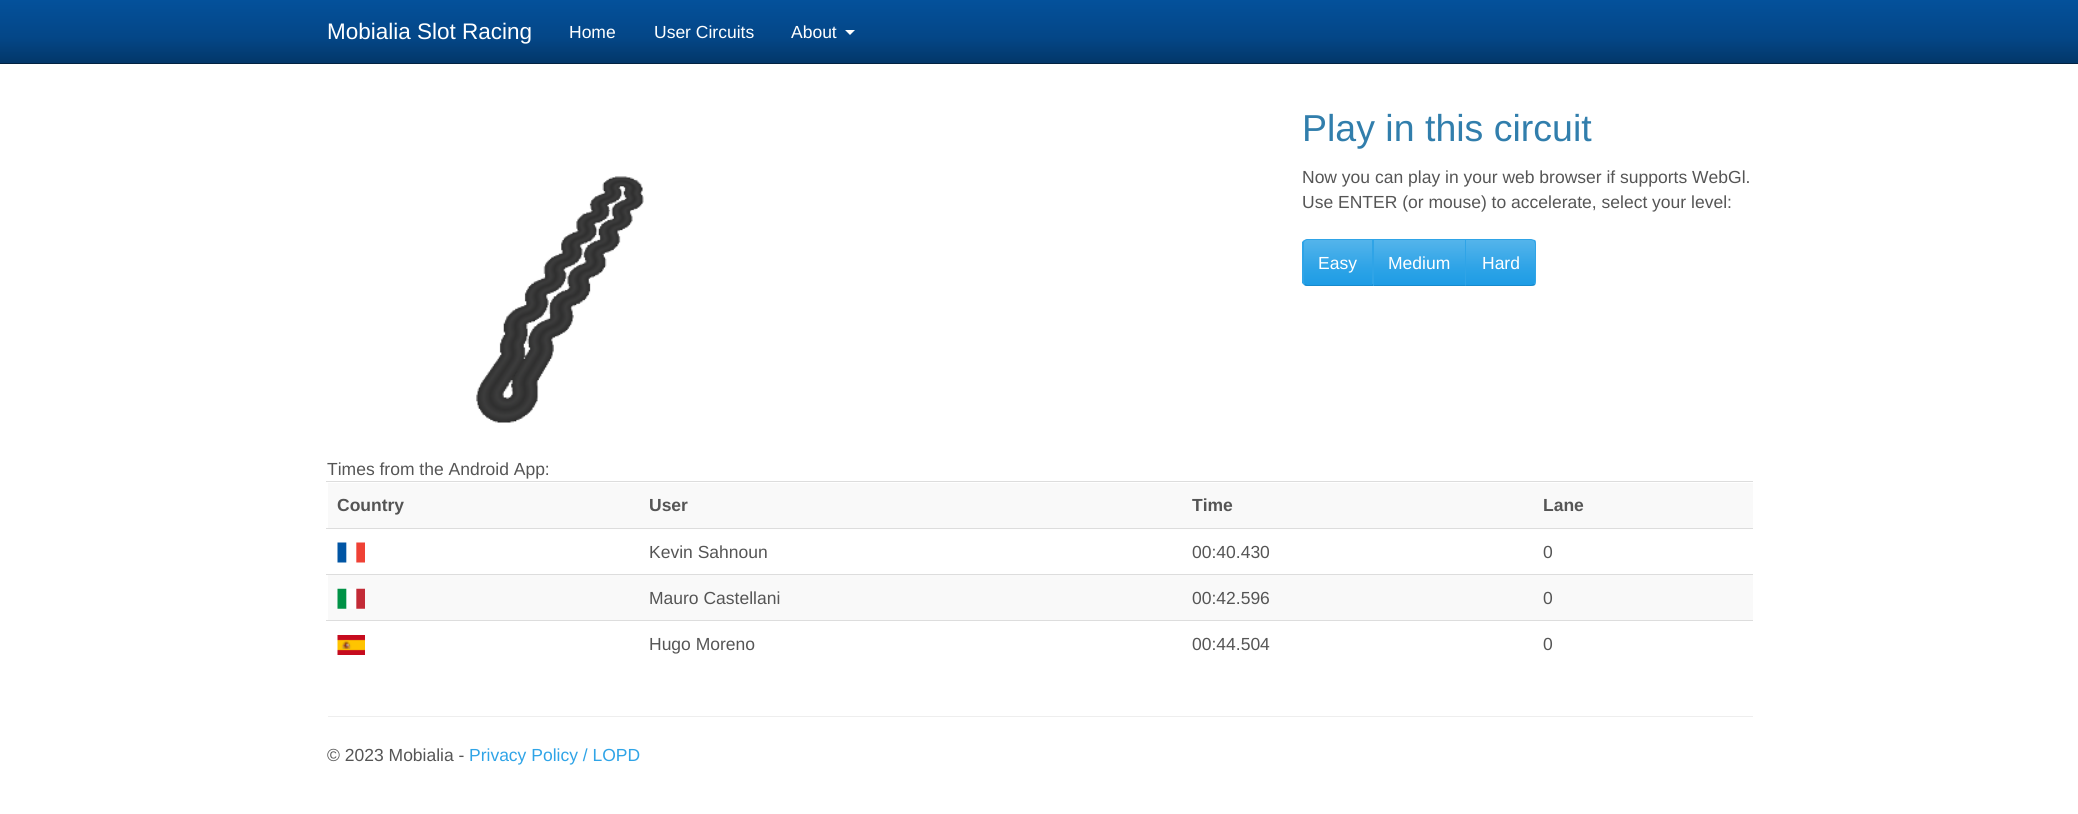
#include <cairo.h>
#include <math.h>
#include <stddef.h>

typedef struct { const char *family; double size; int italic, bold; unsigned color; } style_t;
static cairo_t *ctx;

static void ink(unsigned color) {
    cairo_set_source_rgb(ctx, (color >> 16) / 255.0, (color >> 8 & 255) / 255.0, (color & 255) / 255.0);
}

static void write(double x, double y, const char *s, const style_t *st) {
    cairo_select_font_face(ctx, st->family, st->italic ? CAIRO_FONT_SLANT_ITALIC : CAIRO_FONT_SLANT_NORMAL,
        st->bold ? CAIRO_FONT_WEIGHT_BOLD : CAIRO_FONT_WEIGHT_NORMAL);
    cairo_set_font_size(ctx, st->size);
    ink(st->color);
    cairo_move_to(ctx, x, y);
    cairo_show_text(ctx, s);
}

static void block(double x, double y, double w, double h, unsigned color) {
    ink(color);
    cairo_rectangle(ctx, x, y, w, h);
    cairo_fill(ctx);
}

static void paste(const char *path, double x, double y, double w, double h) {
    cairo_surface_t *image = cairo_image_surface_create_from_png(path);
    cairo_save(ctx);
    cairo_set_source_surface(ctx, image, x, y);
    cairo_rectangle(ctx, x, y, w, h);
    cairo_fill(ctx);
    cairo_restore(ctx);
    cairo_surface_destroy(image);
}

static const style_t s1 = {"Liberation Sans", 22.5, 0, 0, 0xffffff};
static const style_t s2 = {"Liberation Sans", 17.5, 0, 0, 0xffffff};
static const style_t s3 = {"Liberation Sans", 37.5, 0, 0, 0x317eac};
static const style_t s4 = {"Liberation Sans", 17.5, 0, 0, 0x555555};
static const style_t s5 = {"Liberation Sans", 17.5, 0, 1, 0x555555};
static const style_t s6 = {"Liberation Sans", 17.5, 0, 0, 0x2fa4e7};

int main(void) {
    cairo_surface_t *surface = cairo_image_surface_create(CAIRO_FORMAT_RGB24, 2078, 814);
    ctx = cairo_create(surface);
    cairo_font_options_t *options = cairo_font_options_create();
    cairo_font_options_set_hint_metrics(options, CAIRO_HINT_METRICS_OFF);
    cairo_font_options_set_hint_style(options, CAIRO_HINT_STYLE_NONE);
    cairo_set_font_options(ctx, options);
    cairo_set_miter_limit(ctx, 4);
    cairo_pattern_t *gradient;
    ink(0xffffff);
    cairo_paint(ctx);
    gradient = cairo_pattern_create_linear(1039, 0, 1039, 63);
    cairo_pattern_add_color_stop_rgba(gradient, 0, 0.016, 0.318, 0.608, 1);
    cairo_pattern_add_color_stop_rgba(gradient, 0.6, 0.016, 0.275, 0.529, 1);
    cairo_pattern_add_color_stop_rgba(gradient, 1, 0.012, 0.216, 0.412, 1);
    cairo_set_source(ctx, gradient);
    cairo_pattern_destroy(gradient);
    cairo_rectangle(ctx, 0, 0, 2078, 63);
    cairo_fill(ctx);
    block(0, 63, 2078, 1, 0x022241);
    write(327, 39, "Mobialia Slot Racing", &s1);
    write(569, 38, "Home", &s2);
    write(654, 38, "User Circuits", &s2);
    write(791, 38, "About", &s2);
    cairo_new_path(ctx);
    cairo_move_to(ctx, 845, 30);
    cairo_line_to(ctx, 855, 30);
    cairo_line_to(ctx, 850, 35);
    cairo_close_path(ctx);
    cairo_fill(ctx);
    paste("pic1.png", 476, 176, 168, 247);
    write(1302, 141, "Play in this circuit", &s3);
    write(1302, 183, "Now you can play in your web browser if supports WebGl.", &s4);
    write(1302, 208, "Use ENTER (or mouse) to accelerate, select your level:", &s4);
    ink(0x2fa4e7);
    cairo_new_path(ctx);
    cairo_move_to(ctx, 1308, 239);
    cairo_line_to(ctx, 1374, 239);
    cairo_line_to(ctx, 1374, 286);
    cairo_line_to(ctx, 1308, 286);
    cairo_curve_to(ctx, 1305, 286, 1303, 284, 1303, 281);
    cairo_line_to(ctx, 1303, 244);
    cairo_curve_to(ctx, 1303, 241, 1305, 239, 1308, 239);
    cairo_close_path(ctx);
    cairo_fill(ctx);
    gradient = cairo_pattern_create_linear(1338, 240, 1338, 285);
    cairo_pattern_add_color_stop_rgba(gradient, 0, 0.329, 0.706, 0.922, 1);
    cairo_pattern_add_color_stop_rgba(gradient, 0.6, 0.184, 0.643, 0.906, 1);
    cairo_pattern_add_color_stop_rgba(gradient, 1, 0.114, 0.612, 0.898, 1);
    cairo_set_source(ctx, gradient);
    cairo_pattern_destroy(gradient);
    cairo_rectangle(ctx, 1304, 240, 69, 45);
    cairo_fill(ctx);
    ink(0x2fa4e7);
    cairo_new_path(ctx);
    cairo_move_to(ctx, 1308, 239);
    cairo_line_to(ctx, 1304, 240);
    cairo_line_to(ctx, 1305, 241);
    cairo_line_to(ctx, 1307, 240);
    cairo_line_to(ctx, 1372, 240);
    cairo_line_to(ctx, 1374, 239);
    cairo_close_path(ctx);
    cairo_fill(ctx);
    cairo_new_path(ctx);
    cairo_move_to(ctx, 1374, 286);
    cairo_line_to(ctx, 1372, 284);
    cairo_line_to(ctx, 1372, 240);
    cairo_line_to(ctx, 1374, 239);
    cairo_close_path(ctx);
    cairo_fill(ctx);
    ink(0x178acc);
    cairo_new_path(ctx);
    cairo_move_to(ctx, 1374, 286);
    cairo_line_to(ctx, 1308, 286);
    cairo_curve_to(ctx, 1307, 286, 1305, 286, 1304, 285);
    cairo_line_to(ctx, 1305, 284);
    cairo_line_to(ctx, 1307, 285);
    cairo_line_to(ctx, 1372, 285);
    cairo_line_to(ctx, 1372, 284);
    cairo_close_path(ctx);
    cairo_fill(ctx);
    ink(0x2fa4e7);
    cairo_new_path(ctx);
    cairo_move_to(ctx, 1302, 242);
    cairo_line_to(ctx, 1304, 240);
    cairo_line_to(ctx, 1305, 241);
    cairo_curve_to(ctx, 1304, 242, 1304, 243, 1304, 244);
    cairo_line_to(ctx, 1304, 281);
    cairo_curve_to(ctx, 1304, 282, 1304, 283, 1305, 284);
    cairo_line_to(ctx, 1304, 285);
    cairo_line_to(ctx, 1302, 283);
    cairo_close_path(ctx);
    cairo_fill(ctx);
    write(1318, 269, "Easy", &s2);
    block(1374, 239, 92, 1, 0x2fa4e7);
    gradient = cairo_pattern_create_linear(1419, 240, 1419, 285);
    cairo_pattern_add_color_stop_rgba(gradient, 0, 0.329, 0.706, 0.922, 1);
    cairo_pattern_add_color_stop_rgba(gradient, 0.6, 0.184, 0.643, 0.906, 1);
    cairo_pattern_add_color_stop_rgba(gradient, 1, 0.114, 0.612, 0.898, 1);
    cairo_set_source(ctx, gradient);
    cairo_pattern_destroy(gradient);
    cairo_rectangle(ctx, 1374, 240, 91, 45);
    cairo_fill(ctx);
    block(1373, 285, 93, 1, 0x178acc);
    block(1373, 285, 1, 1, 0x2fa4e7);
    write(1388, 269, "Medium", &s2);
    gradient = cairo_pattern_create_linear(1501, 240, 1501, 285);
    cairo_pattern_add_color_stop_rgba(gradient, 0, 0.329, 0.706, 0.922, 1);
    cairo_pattern_add_color_stop_rgba(gradient, 0.6, 0.184, 0.643, 0.906, 1);
    cairo_pattern_add_color_stop_rgba(gradient, 1, 0.114, 0.612, 0.898, 1);
    cairo_set_source(ctx, gradient);
    cairo_pattern_destroy(gradient);
    cairo_rectangle(ctx, 1466, 240, 69, 45);
    cairo_fill(ctx);
    ink(0x2fa4e7);
    cairo_new_path(ctx);
    cairo_move_to(ctx, 1535, 240);
    cairo_curve_to(ctx, 1534, 240, 1532, 239, 1531, 239);
    cairo_line_to(ctx, 1465, 239);
    cairo_line_to(ctx, 1466, 240);
    cairo_line_to(ctx, 1531, 240);
    cairo_line_to(ctx, 1534, 241);
    cairo_close_path(ctx);
    cairo_fill(ctx);
    cairo_new_path(ctx);
    cairo_move_to(ctx, 1535, 240);
    cairo_curve_to(ctx, 1536, 241, 1536, 242, 1536, 244);
    cairo_line_to(ctx, 1536, 281);
    cairo_curve_to(ctx, 1536, 282, 1536, 284, 1535, 285);
    cairo_line_to(ctx, 1534, 284);
    cairo_curve_to(ctx, 1534, 283, 1535, 282, 1535, 281);
    cairo_line_to(ctx, 1535, 244);
    cairo_curve_to(ctx, 1535, 243, 1534, 242, 1534, 241);
    cairo_close_path(ctx);
    cairo_fill(ctx);
    ink(0x178acc);
    cairo_new_path(ctx);
    cairo_move_to(ctx, 1535, 285);
    cairo_curve_to(ctx, 1534, 286, 1532, 286, 1531, 286);
    cairo_line_to(ctx, 1465, 286);
    cairo_line_to(ctx, 1466, 285);
    cairo_line_to(ctx, 1531, 285);
    cairo_line_to(ctx, 1534, 284);
    cairo_close_path(ctx);
    cairo_fill(ctx);
    ink(0x2fa4e7);
    cairo_new_path(ctx);
    cairo_move_to(ctx, 1466, 240);
    cairo_line_to(ctx, 1466, 285);
    cairo_line_to(ctx, 1465, 286);
    cairo_line_to(ctx, 1465, 239);
    cairo_close_path(ctx);
    cairo_fill(ctx);
    write(1482, 269, "Hard", &s2);
    write(327, 475, "Times from the Android App:", &s4);
    block(328, 483, 1425, 45, 0xf9f9f9);
    write(337, 511, "Country", &s5);
    write(649, 511, "User", &s5);
    write(1192, 511, "Time", &s5);
    block(326, 481, 1427, 1, 0xdddddd);
    write(1543, 511, "Lane", &s5);
    paste("pic2.png", 337, 542, 28, 21);
    write(649, 558, "Kevin Sahnoun", &s4);
    write(1192, 558, "00:40.430", &s4);
    block(326, 528, 1427, 1, 0xdddddd);
    write(1543, 558, "0", &s4);
    block(328, 575, 1425, 45, 0xf9f9f9);
    paste("pic3.png", 337, 588, 28, 21);
    write(649, 604, "Mauro Castellani", &s4);
    write(1192, 604, "00:42.596", &s4);
    block(326, 574, 1427, 1, 0xdddddd);
    write(1543, 604, "0", &s4);
    paste("pic4.png", 337, 635, 28, 20);
    write(649, 650, "Hugo Moreno", &s4);
    write(1192, 650, "00:44.504", &s4);
    block(326, 620, 1427, 1, 0xdddddd);
    write(1543, 650, "0", &s4);
    block(328, 716, 1425, 1, 0xeeeeee);
    write(327, 761, "© 2023 Mobialia -", &s4);
    write(469, 761, "Privacy Policy / LOPD", &s6);
    cairo_surface_write_to_png(surface, "screenshot.png");
    cairo_font_options_destroy(options);
    cairo_destroy(ctx);
    cairo_surface_destroy(surface);
    return 0;
}
